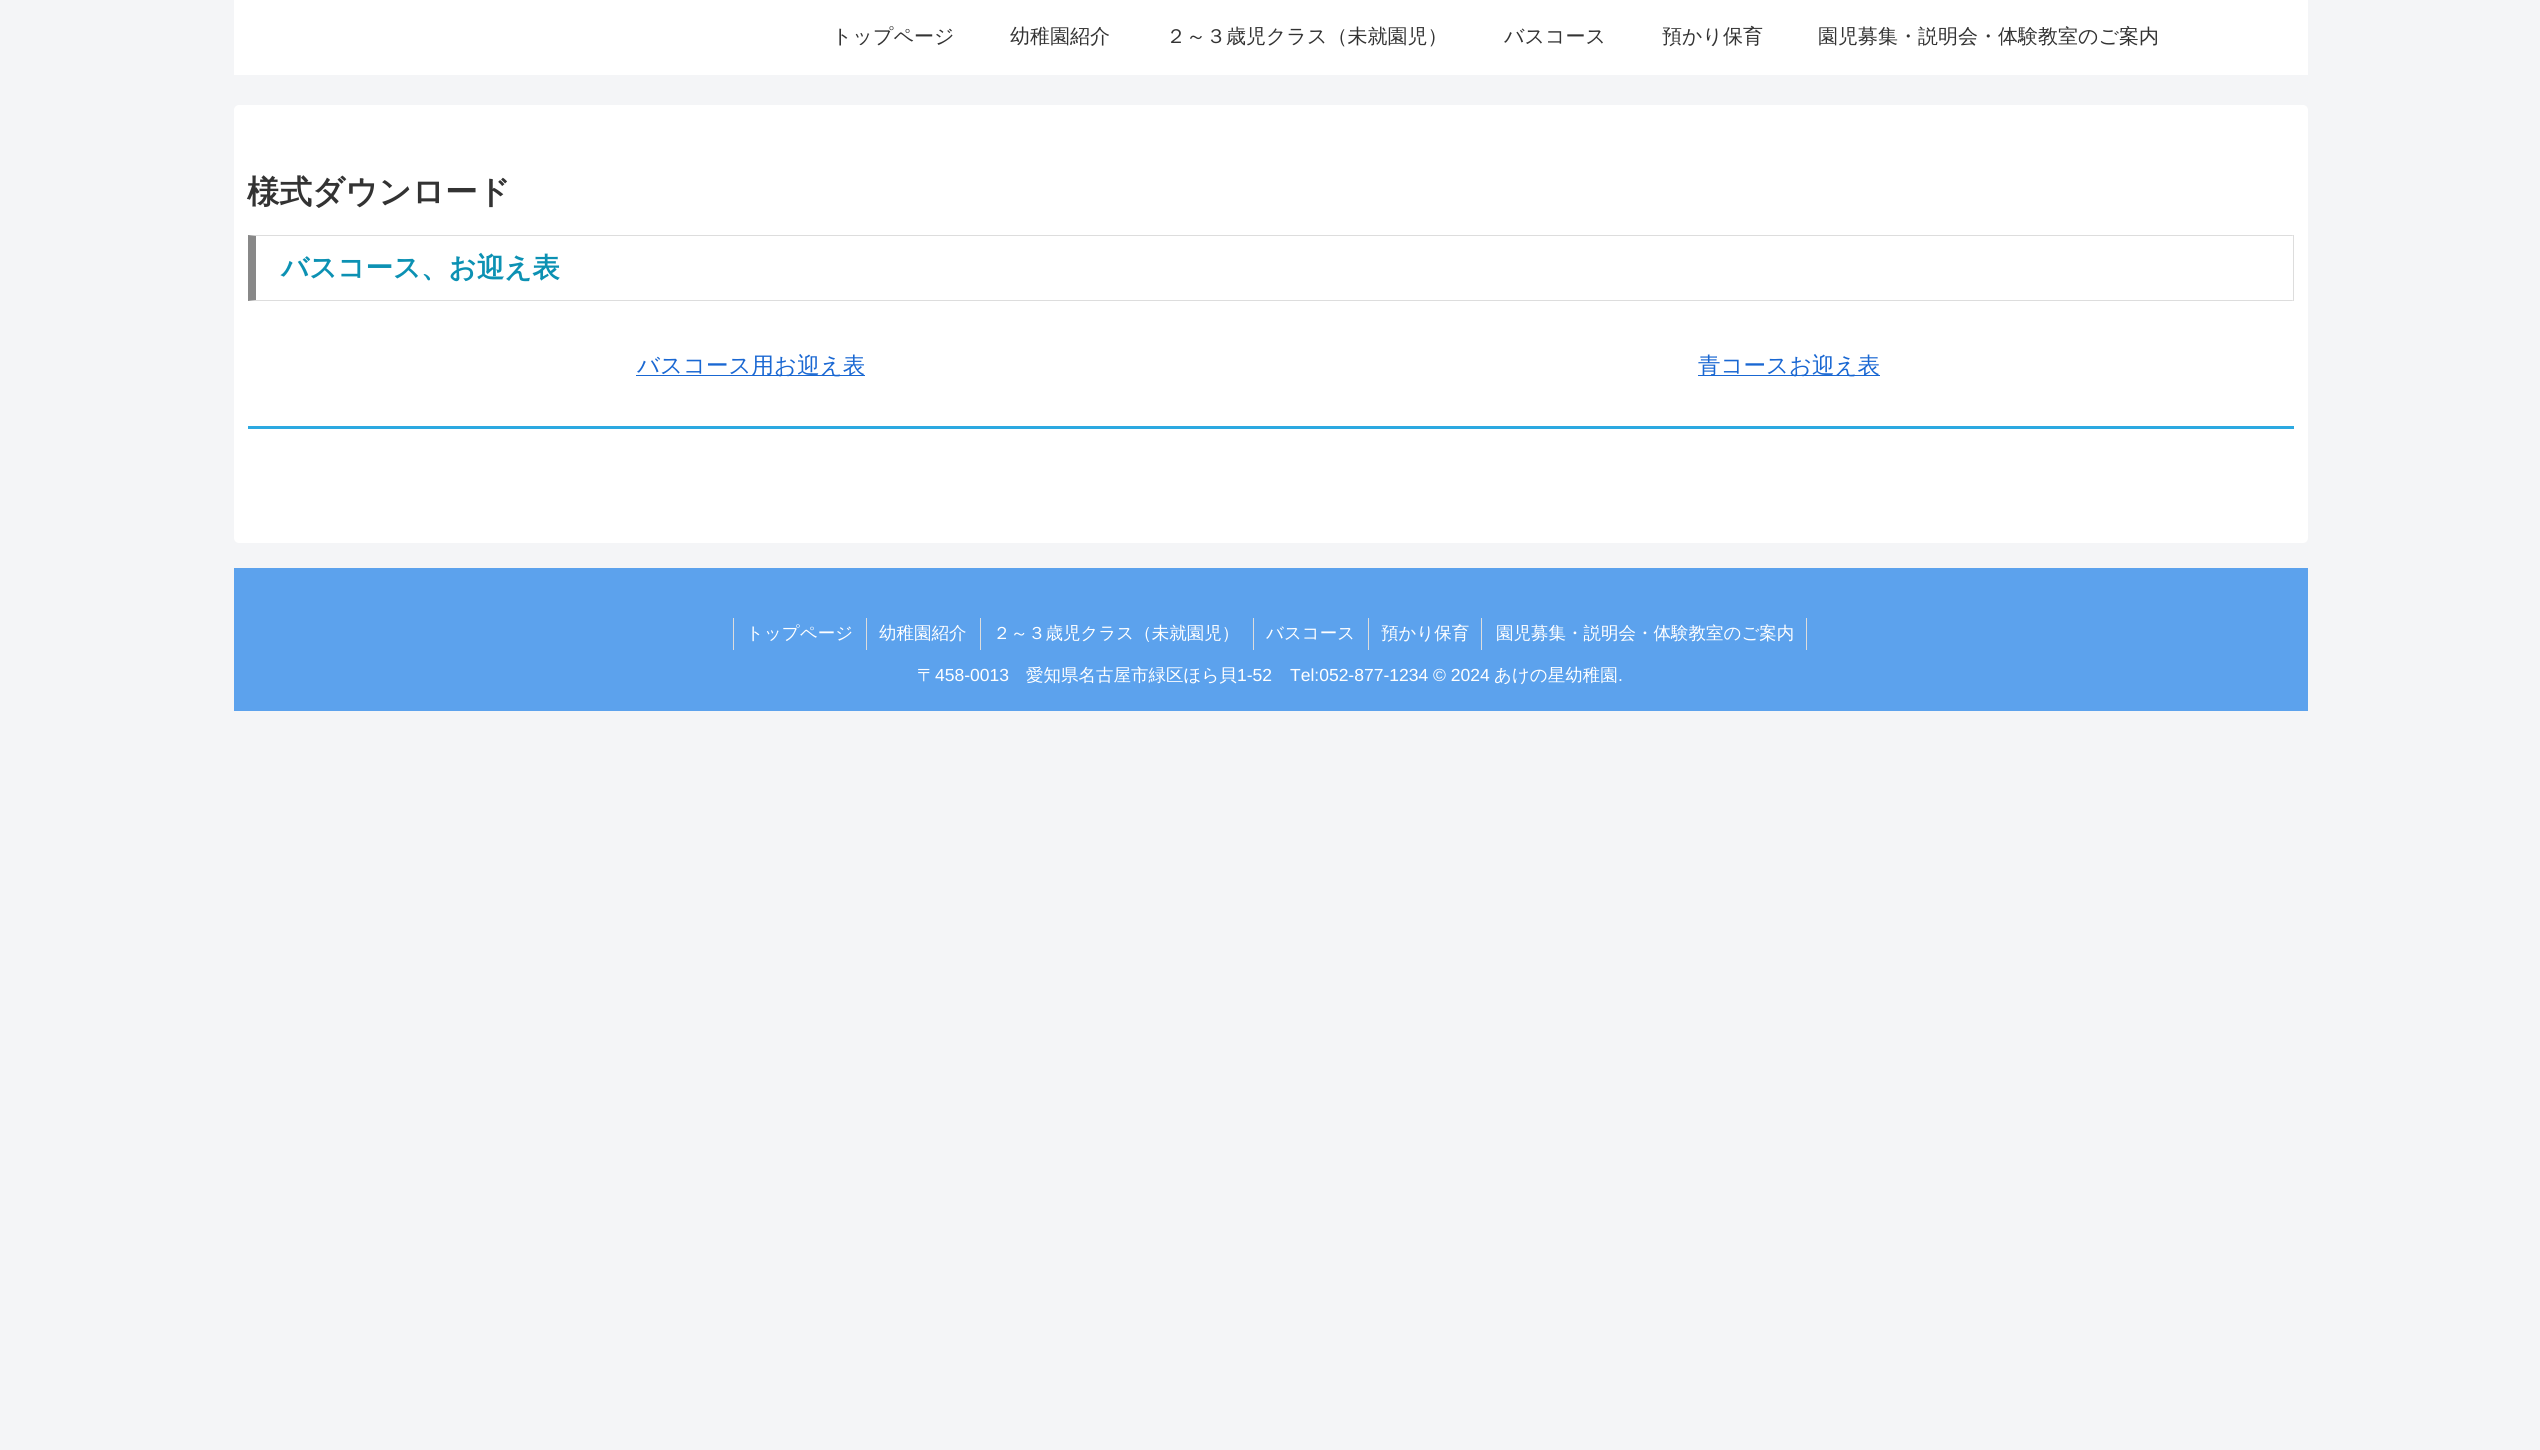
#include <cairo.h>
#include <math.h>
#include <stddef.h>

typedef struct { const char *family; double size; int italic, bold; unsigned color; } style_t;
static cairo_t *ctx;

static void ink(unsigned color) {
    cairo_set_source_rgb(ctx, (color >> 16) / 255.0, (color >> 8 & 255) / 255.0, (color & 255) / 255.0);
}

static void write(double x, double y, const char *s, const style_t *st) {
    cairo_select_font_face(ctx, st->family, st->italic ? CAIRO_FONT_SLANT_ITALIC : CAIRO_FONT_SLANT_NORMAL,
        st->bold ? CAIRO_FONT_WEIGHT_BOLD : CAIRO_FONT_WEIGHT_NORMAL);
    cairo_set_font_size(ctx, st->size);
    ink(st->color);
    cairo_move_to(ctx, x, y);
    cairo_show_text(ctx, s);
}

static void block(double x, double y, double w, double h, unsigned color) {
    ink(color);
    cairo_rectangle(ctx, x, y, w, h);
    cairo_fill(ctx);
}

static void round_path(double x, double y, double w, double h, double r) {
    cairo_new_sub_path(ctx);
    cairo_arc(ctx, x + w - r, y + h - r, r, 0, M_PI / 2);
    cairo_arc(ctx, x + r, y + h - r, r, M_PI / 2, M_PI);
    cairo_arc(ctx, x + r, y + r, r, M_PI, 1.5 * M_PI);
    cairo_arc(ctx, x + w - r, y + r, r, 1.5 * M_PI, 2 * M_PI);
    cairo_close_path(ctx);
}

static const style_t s1 = {"WenQuanYi Zen Hei Medium", 20, 0, 0, 0x333333};
static const style_t s2 = {"WenQuanYi Zen Hei", 32.5, 0, 1, 0x333333};
static const style_t s3 = {"WenQuanYi Zen Hei", 27.5, 0, 1, 0x0c91b3};
static const style_t s4 = {"WenQuanYi Zen Hei Medium", 22.5, 0, 0, 0x1967d2};
static const style_t s5 = {"WenQuanYi Zen Hei Medium", 17.5, 0, 0, 0xffffff};
static const style_t s6 = {"Liberation Sans", 17.5, 0, 0, 0xffffff};

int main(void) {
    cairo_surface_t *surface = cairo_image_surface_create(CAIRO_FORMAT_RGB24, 2540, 1450);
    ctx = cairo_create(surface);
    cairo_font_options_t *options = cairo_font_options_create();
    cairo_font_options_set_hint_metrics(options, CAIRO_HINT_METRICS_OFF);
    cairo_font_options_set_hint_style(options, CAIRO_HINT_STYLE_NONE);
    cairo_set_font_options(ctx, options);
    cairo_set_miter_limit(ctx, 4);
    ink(0xf4f5f7);
    cairo_paint(ctx);
    block(234, 0, 2074, 75, 0xffffff);
    write(832, 43, "トップページ", &s1);
    write(1010, 43, "幼稚園紹介", &s1);
    write(1166, 43, "２～３歳児クラス（未就園児）", &s1);
    write(1504, 43, "バスコース", &s1);
    write(1662, 43, "預かり保育", &s1);
    write(1818, 43, "園児募集・説明会・体験教室のご案内", &s1);
    ink(0xffffff);
    round_path(234, 105, 2074, 438, 5);
    cairo_fill(ctx);
    write(247, 203, "様式ダウンロード", &s2);
    ink(0xdddddd);
    cairo_new_path(ctx);
    cairo_move_to(ctx, 248, 235);
    cairo_line_to(ctx, 2294, 235);
    cairo_line_to(ctx, 2292, 236);
    cairo_line_to(ctx, 256, 236);
    cairo_close_path(ctx);
    cairo_fill(ctx);
    block(2293, 235, 1, 66, 0xdddddd);
    cairo_new_path(ctx);
    cairo_move_to(ctx, 2294, 301);
    cairo_line_to(ctx, 248, 301);
    cairo_line_to(ctx, 256, 300);
    cairo_line_to(ctx, 2292, 300);
    cairo_close_path(ctx);
    cairo_fill(ctx);
    ink(0x888888);
    cairo_new_path(ctx);
    cairo_move_to(ctx, 248, 301);
    cairo_line_to(ctx, 248, 235);
    cairo_line_to(ctx, 256, 236);
    cairo_line_to(ctx, 256, 300);
    cairo_close_path(ctx);
    cairo_fill(ctx);
    write(281, 277, "バスコース、お迎え表", &s3);
    block(636, 375, 229, 1, 0x1967d2);
    write(637, 373, "バスコース用お迎え表", &s4);
    block(1698, 375, 182, 1, 0x1967d2);
    write(1698, 373, "青コースお迎え表", &s4);
    block(248, 426, 2046, 3, 0x2ca9e1);
    block(234, 568, 2074, 143, 0x5ca2ed);
    block(733, 618, 1, 32, 0xdddddd);
    write(746, 639, "トップページ", &s5);
    block(866, 618, 1, 32, 0xdddddd);
    write(879, 639, "幼稚園紹介", &s5);
    block(980, 618, 1, 32, 0xdddddd);
    write(993, 639, "２～３歳児クラス（未就園児）", &s5);
    block(1253, 618, 1, 32, 0xdddddd);
    write(1266, 639, "バスコース", &s5);
    block(1368, 618, 1, 32, 0xdddddd);
    write(1381, 639, "預かり保育", &s5);
    block(1806, 618, 1, 32, 0xdddddd);
    block(1481, 618, 1, 32, 0xdddddd);
    write(1496, 639, "園児募集・説明会・体験教室のご案内", &s5);
    write(917, 681, "〒", &s5);
    write(935, 681, "458-0013", &s6);
    write(1026, 681, "愛知県名古屋市緑区ほら貝", &s5);
    write(1237, 681, "1-52", &s6);
    write(1290, 681, "Tel:052-877-1234 © 2024", &s6);
    write(1494, 681, "あけの星幼稚園", &s5);
    write(1618, 681, ".", &s6);
    cairo_surface_write_to_png(surface, "screenshot.png");
    cairo_font_options_destroy(options);
    cairo_destroy(ctx);
    cairo_surface_destroy(surface);
    return 0;
}
